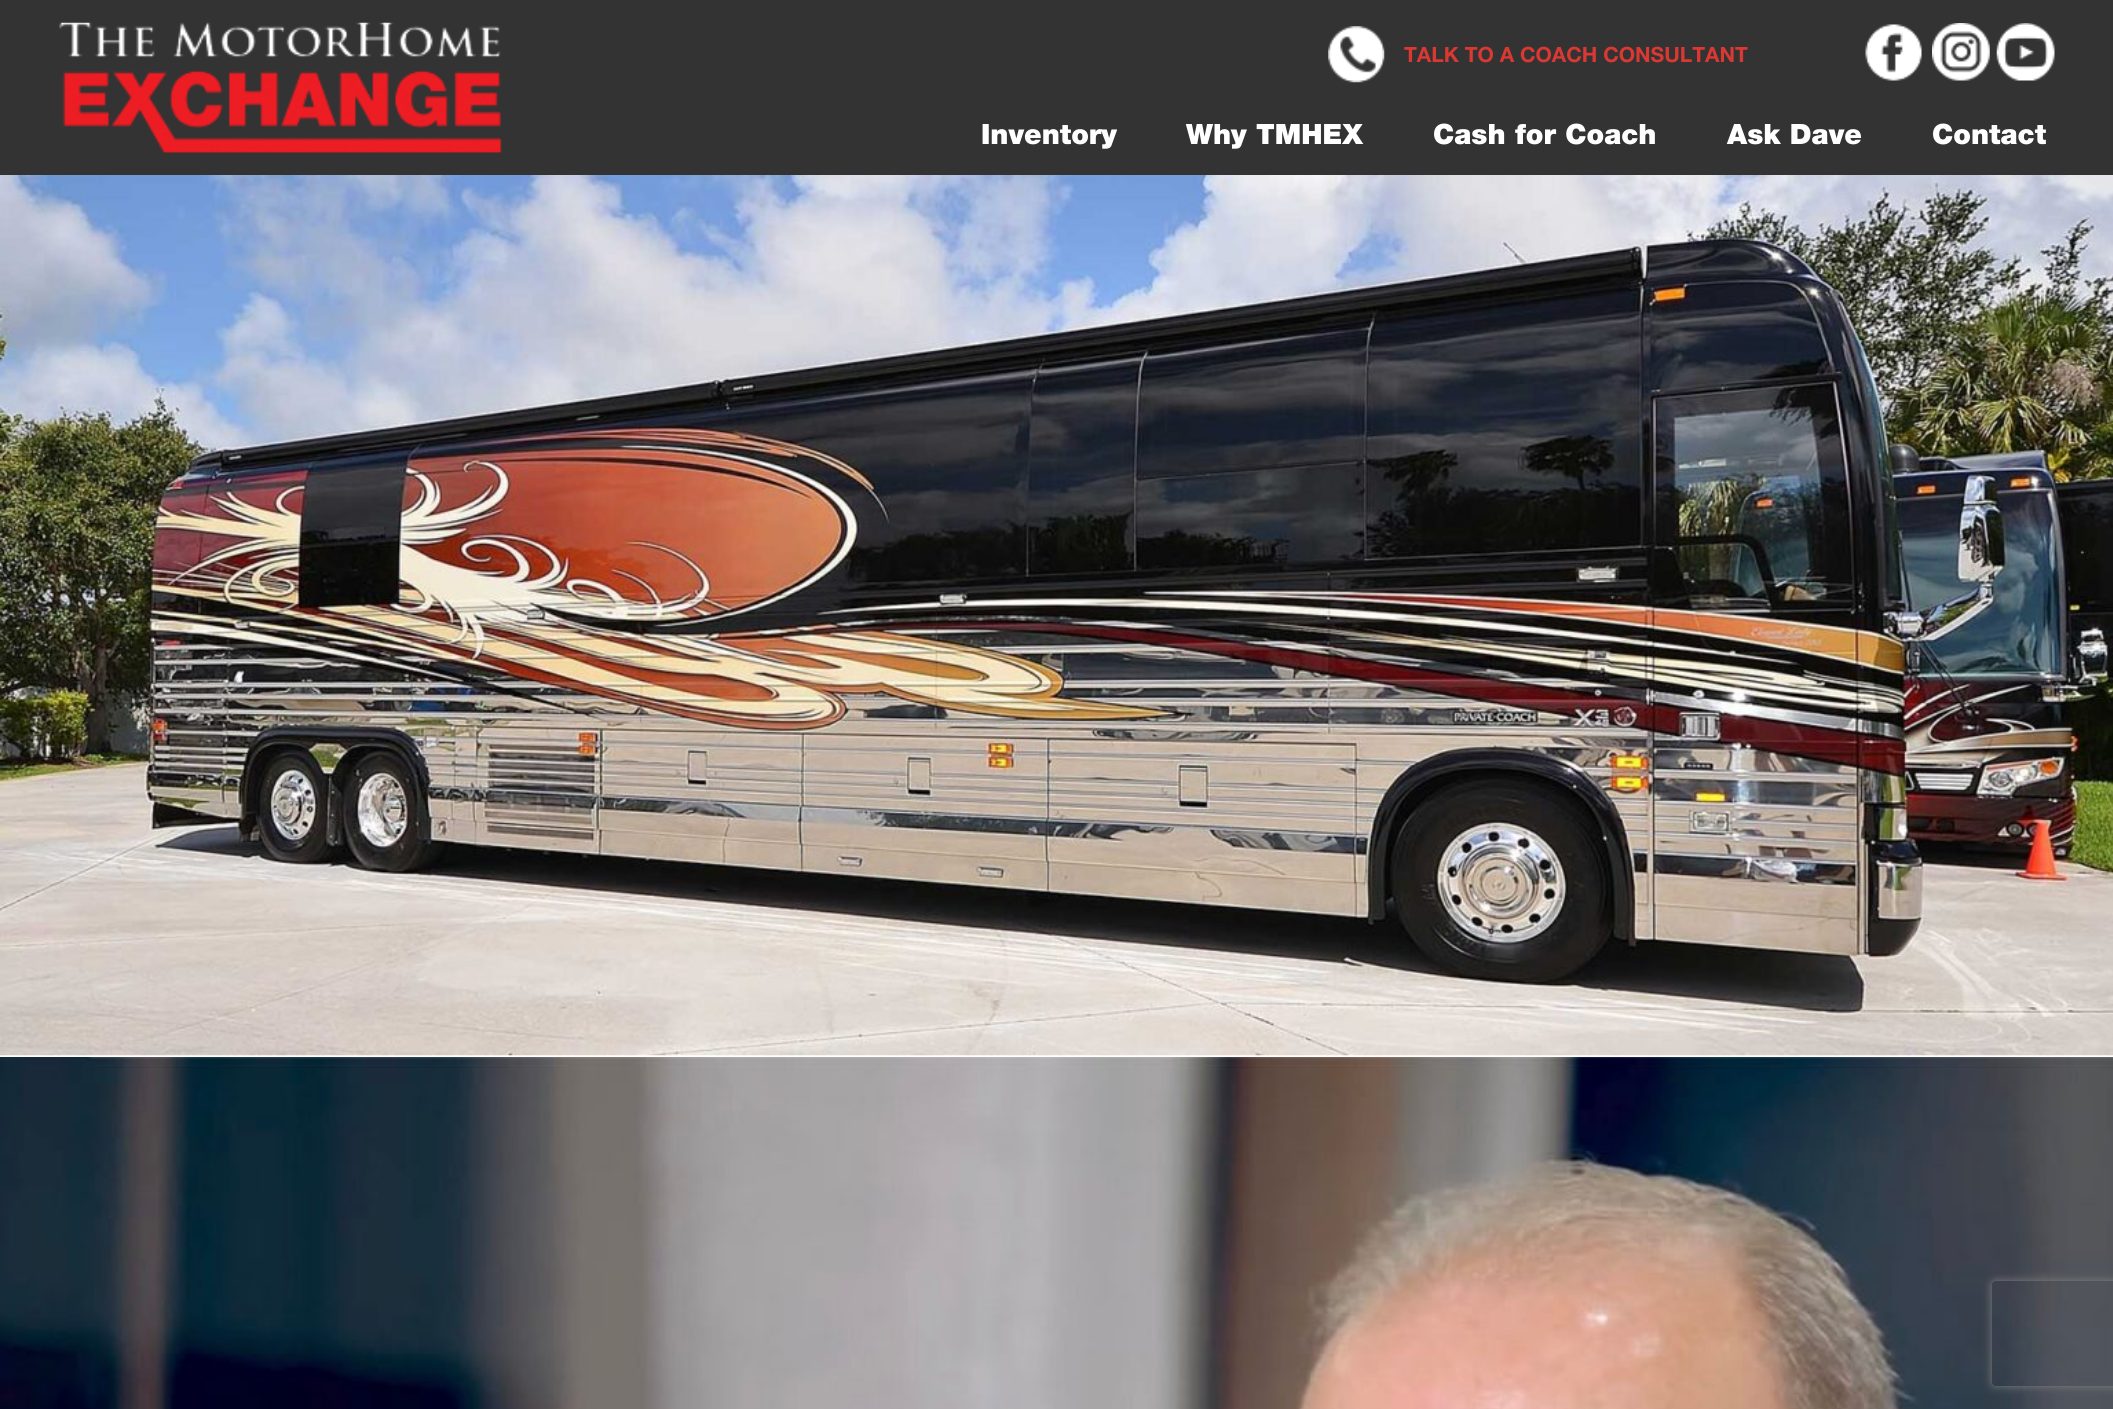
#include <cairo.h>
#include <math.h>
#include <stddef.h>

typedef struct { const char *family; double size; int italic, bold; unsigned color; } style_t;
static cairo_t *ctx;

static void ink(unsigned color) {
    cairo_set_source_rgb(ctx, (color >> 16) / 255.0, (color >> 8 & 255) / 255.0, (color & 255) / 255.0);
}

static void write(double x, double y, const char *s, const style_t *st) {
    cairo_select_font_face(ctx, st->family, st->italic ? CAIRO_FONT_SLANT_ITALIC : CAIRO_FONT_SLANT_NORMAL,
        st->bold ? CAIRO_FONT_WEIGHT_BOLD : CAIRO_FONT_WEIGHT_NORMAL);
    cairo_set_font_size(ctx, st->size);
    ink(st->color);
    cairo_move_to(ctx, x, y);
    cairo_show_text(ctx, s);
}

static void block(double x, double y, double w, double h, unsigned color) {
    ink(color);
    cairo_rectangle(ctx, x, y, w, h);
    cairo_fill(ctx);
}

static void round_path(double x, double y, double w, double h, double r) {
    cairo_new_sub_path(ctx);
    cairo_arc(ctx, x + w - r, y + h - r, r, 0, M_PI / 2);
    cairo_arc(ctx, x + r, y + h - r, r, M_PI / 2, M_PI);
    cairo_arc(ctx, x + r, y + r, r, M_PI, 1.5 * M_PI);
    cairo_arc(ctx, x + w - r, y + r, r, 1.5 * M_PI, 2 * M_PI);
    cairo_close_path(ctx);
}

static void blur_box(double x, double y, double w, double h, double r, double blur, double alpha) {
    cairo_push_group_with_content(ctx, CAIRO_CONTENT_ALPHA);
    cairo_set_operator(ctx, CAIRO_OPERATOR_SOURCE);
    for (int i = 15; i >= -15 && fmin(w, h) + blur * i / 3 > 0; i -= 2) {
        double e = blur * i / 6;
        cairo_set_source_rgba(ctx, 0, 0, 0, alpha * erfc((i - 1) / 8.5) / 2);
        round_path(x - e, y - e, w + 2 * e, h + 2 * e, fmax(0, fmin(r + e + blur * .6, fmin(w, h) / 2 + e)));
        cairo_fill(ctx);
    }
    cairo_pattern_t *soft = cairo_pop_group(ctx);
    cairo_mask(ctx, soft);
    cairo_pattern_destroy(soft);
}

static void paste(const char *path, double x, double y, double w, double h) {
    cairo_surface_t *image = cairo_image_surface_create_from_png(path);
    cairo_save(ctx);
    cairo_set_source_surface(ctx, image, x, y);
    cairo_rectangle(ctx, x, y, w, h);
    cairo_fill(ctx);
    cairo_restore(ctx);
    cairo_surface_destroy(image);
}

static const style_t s1 = {"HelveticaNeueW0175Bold", 21, 0, 1, 0xda3832};
static const style_t s2 = {"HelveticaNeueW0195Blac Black", 28, 0, 0, 0xffffff};

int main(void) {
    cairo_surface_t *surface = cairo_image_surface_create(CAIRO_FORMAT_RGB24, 2113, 1409);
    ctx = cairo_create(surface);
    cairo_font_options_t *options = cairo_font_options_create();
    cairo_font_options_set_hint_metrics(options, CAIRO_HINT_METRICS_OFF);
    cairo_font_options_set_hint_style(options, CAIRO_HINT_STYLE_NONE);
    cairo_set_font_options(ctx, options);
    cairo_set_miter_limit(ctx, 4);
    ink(0xffffff);
    cairo_paint(ctx);
    block(0, 0, 2113, 175, 0x333333);
    paste("pic1.png", 59, 22, 444, 132);
    paste("pic2.png", 1328, 26, 57, 57);
    write(1404, 62, "TALK TO A COACH CONSULTANT", &s1);
    paste("pic3.png", 1865, 24, 57, 57);
    paste("pic4.png", 1932, 23, 58, 58);
    paste("pic5.png", 1996, 23, 59, 58);
    write(981, 144, "Inventory", &s2);
    write(1186, 144, "Why TMHEX", &s2);
    write(1433, 144, "Cash for Coach", &s2);
    write(1727, 144, "Ask Dave", &s2);
    write(1932, 144, "Contact", &s2);
    paste("pic6.png", 0, 175, 2113, 881);
    paste("pic7.png", 0, 1057, 2113, 352);
    cairo_save(ctx);
    cairo_set_fill_rule(ctx, CAIRO_FILL_RULE_EVEN_ODD);
    cairo_new_path(ctx);
    cairo_move_to(ctx, 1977, 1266);
    cairo_line_to(ctx, 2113, 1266);
    cairo_line_to(ctx, 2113, 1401);
    cairo_line_to(ctx, 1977, 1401);
    cairo_close_path(ctx);
    cairo_move_to(ctx, 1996, 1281);
    cairo_line_to(ctx, 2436, 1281);
    cairo_curve_to(ctx, 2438, 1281, 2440, 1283, 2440, 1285);
    cairo_line_to(ctx, 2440, 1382);
    cairo_curve_to(ctx, 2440, 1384, 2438, 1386, 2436, 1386);
    cairo_line_to(ctx, 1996, 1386);
    cairo_curve_to(ctx, 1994, 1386, 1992, 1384, 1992, 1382);
    cairo_line_to(ctx, 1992, 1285);
    cairo_curve_to(ctx, 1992, 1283, 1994, 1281, 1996, 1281);
    cairo_close_path(ctx);
    cairo_clip(ctx);
    ink(0x808080);
    blur_box(1992, 1281, 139, 105, 4, 4.5, 1);
    cairo_restore(ctx);
    cairo_surface_write_to_png(surface, "screenshot.png");
    cairo_font_options_destroy(options);
    cairo_destroy(ctx);
    cairo_surface_destroy(surface);
    return 0;
}
